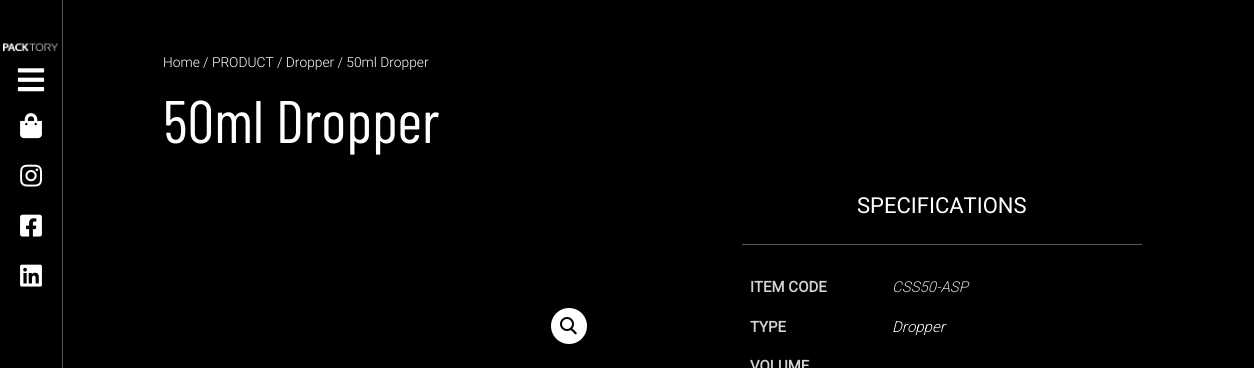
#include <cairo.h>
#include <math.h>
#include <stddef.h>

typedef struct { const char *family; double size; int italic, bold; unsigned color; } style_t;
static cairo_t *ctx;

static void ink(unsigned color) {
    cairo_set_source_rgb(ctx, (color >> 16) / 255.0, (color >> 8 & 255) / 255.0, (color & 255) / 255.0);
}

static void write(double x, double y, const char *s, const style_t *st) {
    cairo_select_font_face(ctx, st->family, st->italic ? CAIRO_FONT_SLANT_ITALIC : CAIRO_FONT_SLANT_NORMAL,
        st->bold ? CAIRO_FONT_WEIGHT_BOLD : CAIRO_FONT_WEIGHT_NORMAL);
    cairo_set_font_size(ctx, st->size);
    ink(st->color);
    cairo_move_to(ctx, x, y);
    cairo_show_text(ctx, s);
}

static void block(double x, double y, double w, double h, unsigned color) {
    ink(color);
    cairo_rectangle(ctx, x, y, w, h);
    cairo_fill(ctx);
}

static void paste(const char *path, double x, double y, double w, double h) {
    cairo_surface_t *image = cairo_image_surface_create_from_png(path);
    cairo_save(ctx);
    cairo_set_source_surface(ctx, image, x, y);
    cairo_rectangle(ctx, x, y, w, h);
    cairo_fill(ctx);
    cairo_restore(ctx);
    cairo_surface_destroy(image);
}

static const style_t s1 = {"Roboto Light", 13.75, 0, 0, 0xffffff};
static const style_t s2 = {"Barlow Condensed", 60, 0, 0, 0xffffff};
static const style_t s3 = {"Roboto", 22, 0, 0, 0xffffff};
static const style_t s4 = {"Roboto", 15, 0, 1, 0xd3d3d3};
static const style_t s5 = {"Roboto Light", 15, 1, 0, 0xd3d3d3};
static const style_t s6 = {"Roboto Light", 15, 1, 0, 0xffffff};

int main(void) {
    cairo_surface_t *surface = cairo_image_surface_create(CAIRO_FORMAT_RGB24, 1254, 368);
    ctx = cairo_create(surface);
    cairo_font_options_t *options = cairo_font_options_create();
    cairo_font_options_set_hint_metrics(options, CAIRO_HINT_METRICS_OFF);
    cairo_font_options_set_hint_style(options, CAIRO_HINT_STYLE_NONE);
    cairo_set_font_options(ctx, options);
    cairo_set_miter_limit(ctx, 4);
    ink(0x000000);
    cairo_paint(ctx);
    block(62, 0, 1, 368, 0x54595f);
    paste("pic1.png", 3, 42, 55, 10);
    paste("pic2.png", 17, 68, 28, 24);
    paste("pic3.png", 20, 113, 22, 26);
    paste("pic4.png", 20, 164, 22, 23);
    paste("pic5.png", 20, 214, 22, 23);
    paste("pic6.png", 20, 264, 22, 23);
    write(163, 67, "Home / PRODUCT / Dropper / 50ml Dropper", &s1);
    write(163, 143, "50ml Dropper", &s2);
    cairo_new_path(ctx);
    cairo_arc(ctx, 569, 326, 18, 0, 2 * M_PI);
    cairo_fill(ctx);
    cairo_arc(ctx, 567, 324, 6, 0, 2 * M_PI);
    ink(0x000000);
    cairo_stroke(ctx);
    cairo_new_path(ctx);
    cairo_move_to(ctx, 571, 328.5);
    cairo_curve_to(ctx, 572, 327.5, 573.5, 330, 574.5, 330.5);
    cairo_curve_to(ctx, 575, 331, 577.5, 333, 576.5, 334);
    cairo_curve_to(ctx, 575.5, 335.5, 573.5, 332.5, 573, 332);
    cairo_curve_to(ctx, 572.5, 331.5, 569.5, 329.5, 571, 328.5);
    cairo_close_path(ctx);
    cairo_fill(ctx);
    write(857, 213, "SPECIFICATIONS", &s3);
    block(742, 244, 400, 1, 0x54595f);
    write(750, 292, "ITEM CODE", &s4);
    write(892, 292, "CSS50-ASP", &s5);
    write(750, 332, "TYPE", &s4);
    write(892, 332, "Dropper", &s6);
    write(750, 371, "VOLUME", &s4);
    cairo_surface_write_to_png(surface, "screenshot.png");
    cairo_font_options_destroy(options);
    cairo_destroy(ctx);
    cairo_surface_destroy(surface);
    return 0;
}
